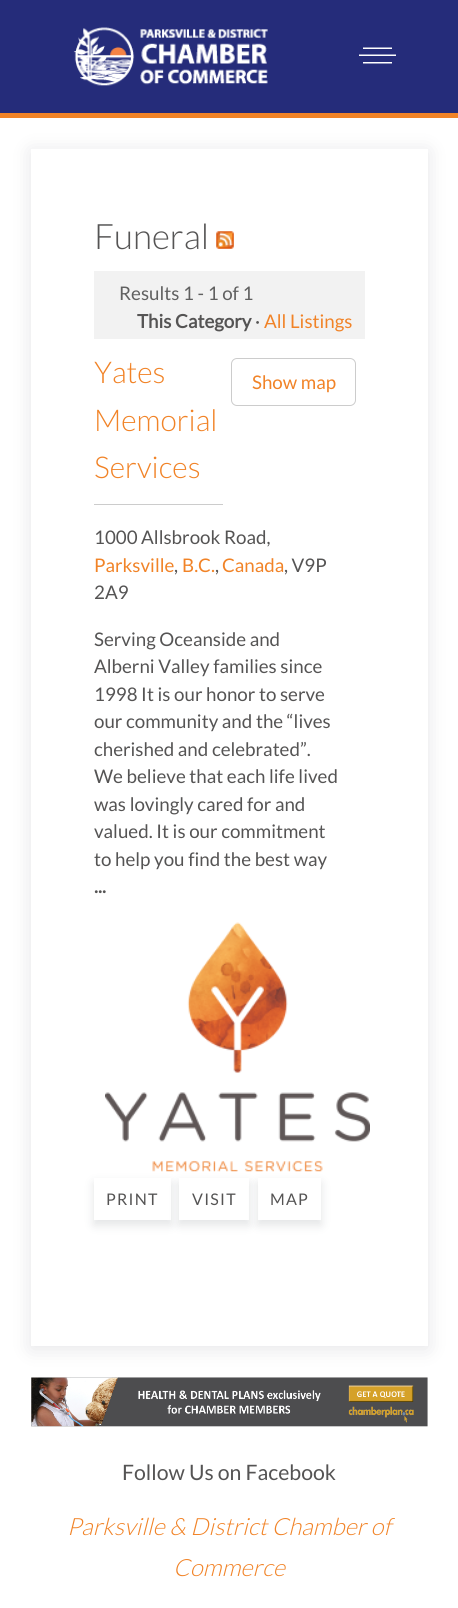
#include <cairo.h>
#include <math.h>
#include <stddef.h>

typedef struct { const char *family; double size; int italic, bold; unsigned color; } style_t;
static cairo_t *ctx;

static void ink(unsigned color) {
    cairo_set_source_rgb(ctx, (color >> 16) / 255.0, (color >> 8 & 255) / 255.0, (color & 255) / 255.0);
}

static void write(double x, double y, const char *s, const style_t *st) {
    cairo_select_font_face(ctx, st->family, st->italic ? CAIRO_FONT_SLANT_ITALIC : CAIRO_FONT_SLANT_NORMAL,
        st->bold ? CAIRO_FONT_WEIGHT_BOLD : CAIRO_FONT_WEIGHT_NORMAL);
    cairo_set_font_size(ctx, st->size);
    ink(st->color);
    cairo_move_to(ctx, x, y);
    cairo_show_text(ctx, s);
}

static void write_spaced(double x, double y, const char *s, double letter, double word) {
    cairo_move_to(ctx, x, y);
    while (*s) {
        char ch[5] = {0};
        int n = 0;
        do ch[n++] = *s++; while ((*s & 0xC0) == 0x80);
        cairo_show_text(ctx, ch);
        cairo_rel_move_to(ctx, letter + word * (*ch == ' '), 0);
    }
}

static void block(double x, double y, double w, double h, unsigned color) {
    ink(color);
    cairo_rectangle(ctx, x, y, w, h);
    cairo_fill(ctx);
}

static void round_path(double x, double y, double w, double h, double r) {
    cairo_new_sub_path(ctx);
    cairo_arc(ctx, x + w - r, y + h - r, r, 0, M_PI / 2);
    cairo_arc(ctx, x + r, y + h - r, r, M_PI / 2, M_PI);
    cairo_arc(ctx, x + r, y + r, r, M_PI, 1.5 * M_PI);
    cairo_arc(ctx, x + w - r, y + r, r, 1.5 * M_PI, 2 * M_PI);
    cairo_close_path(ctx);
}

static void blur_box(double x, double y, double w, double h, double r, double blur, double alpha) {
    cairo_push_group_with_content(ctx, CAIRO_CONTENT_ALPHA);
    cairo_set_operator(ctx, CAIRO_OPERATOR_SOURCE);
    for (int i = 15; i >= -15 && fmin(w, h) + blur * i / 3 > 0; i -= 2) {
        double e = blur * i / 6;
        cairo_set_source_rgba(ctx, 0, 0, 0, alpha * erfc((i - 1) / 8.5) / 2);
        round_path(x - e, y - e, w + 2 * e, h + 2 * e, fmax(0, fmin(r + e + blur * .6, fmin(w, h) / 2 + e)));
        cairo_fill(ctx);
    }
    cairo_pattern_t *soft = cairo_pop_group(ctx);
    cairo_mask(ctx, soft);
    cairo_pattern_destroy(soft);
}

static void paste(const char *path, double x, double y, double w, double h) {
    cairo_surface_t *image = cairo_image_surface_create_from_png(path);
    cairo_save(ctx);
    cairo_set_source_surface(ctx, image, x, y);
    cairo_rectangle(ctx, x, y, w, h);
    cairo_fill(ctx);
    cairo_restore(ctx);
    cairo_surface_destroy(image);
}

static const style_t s1 = {"Lato Light", 35, 0, 0, 0x555454};
static const style_t s2 = {"Lato", 18.75, 0, 0, 0x606060};
static const style_t s3 = {"Lato", 18.75, 0, 1, 0x555454};
static const style_t s4 = {"Lato", 18.75, 0, 0, 0x555454};
static const style_t s5 = {"Lato", 18.75, 0, 0, 0xf18327};
static const style_t s6 = {"Lato Light", 30, 0, 0, 0xf18327};
static const style_t s7 = {"Lato", 21.25, 0, 0, 0x555454};
static const style_t s8 = {"Lato Light", 23.75, 1, 0, 0xf18327};

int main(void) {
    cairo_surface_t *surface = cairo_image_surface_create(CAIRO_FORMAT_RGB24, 458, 1608);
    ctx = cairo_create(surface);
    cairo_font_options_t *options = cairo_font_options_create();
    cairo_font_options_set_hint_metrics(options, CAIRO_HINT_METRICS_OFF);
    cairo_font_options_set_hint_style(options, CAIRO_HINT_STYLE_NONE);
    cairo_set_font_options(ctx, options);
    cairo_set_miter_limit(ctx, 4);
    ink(0xffffff);
    cairo_paint(ctx);
    block(0, 0, 458, 113, 0x252c7a);
    block(0, 113, 458, 5, 0xf18327);
    paste("pic1.png", 73, 27, 195, 59);
    ink(0xffffff);
    cairo_new_path(ctx);
    cairo_move_to(ctx, 363, 47.5);
    cairo_line_to(ctx, 392, 47.5);
    cairo_line_to(ctx, 392, 49);
    cairo_line_to(ctx, 363, 49);
    cairo_close_path(ctx);
    cairo_move_to(ctx, 363, 62);
    cairo_line_to(ctx, 392, 62);
    cairo_line_to(ctx, 392, 63.5);
    cairo_line_to(ctx, 363, 63.5);
    cairo_close_path(ctx);
    cairo_move_to(ctx, 359, 54.5);
    cairo_line_to(ctx, 396, 54.5);
    cairo_line_to(ctx, 396, 56);
    cairo_line_to(ctx, 359, 56);
    cairo_close_path(ctx);
    cairo_fill(ctx);
    ink(0x9797a3);
    blur_box(31, 151, 397, 1198, 0, 9.5, 0.25);
    block(31, 149, 397, 1197, 0xffffff);
    write(94, 249, "Funeral", &s1);
    paste("pic2.png", 216, 231, 18, 18);
    block(94, 271, 271, 68, 0xf2f2f2);
    write(119, 300, "Results 1 - 1 of 1", &s2);
    write(137, 328, "This Category", &s3);
    write(255, 328, "·", &s4);
    write(264, 328, "All Listings", &s5);
    block(94, 504, 129, 1, 0xcccccc);
    write(94, 383, "Yates", &s6);
    write(94, 431, "Memorial", &s6);
    write(94, 478, "Services", &s6);
    write(94, 544, "1000 Allsbrook Road,", &s4);
    write(94, 572, "Parksville", &s5);
    write(174, 572, ",", &s4);
    write(182, 572, "B.C.", &s5);
    write(215, 572, ",", &s4);
    write(222, 572, "Canada", &s5);
    write(284, 572, ", V9P", &s4);
    write(94, 599, "2A9", &s4);
    write(94, 646, "Serving Oceanside and", &s4);
    write(94, 673, "Alberni Valley families since", &s4);
    write(94, 701, "1998 It is our honor to serve", &s4);
    write(94, 728, "our community and the “lives", &s4);
    write(94, 756, "cherished and celebrated”.", &s4);
    write(94, 783, "We believe that each life lived", &s4);
    write(94, 811, "was lovingly cared for and", &s4);
    write(94, 838, "valued. It is our commitment", &s4);
    write(94, 866, "to help you find the best way", &s4);
    write(94, 893, "...", &s3);
    paste("pic3.png", 105, 922, 265, 250);
    cairo_save(ctx);
    cairo_set_fill_rule(ctx, CAIRO_FILL_RULE_EVEN_ODD);
    cairo_new_path(ctx);
    cairo_move_to(ctx, 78, 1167);
    cairo_line_to(ctx, 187, 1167);
    cairo_line_to(ctx, 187, 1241);
    cairo_line_to(ctx, 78, 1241);
    cairo_close_path(ctx);
    cairo_move_to(ctx, 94, 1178);
    cairo_line_to(ctx, 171, 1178);
    cairo_line_to(ctx, 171, 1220);
    cairo_line_to(ctx, 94, 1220);
    cairo_close_path(ctx);
    cairo_clip(ctx);
    ink(0xa0a5a8);
    blur_box(94, 1183, 77, 42, 0, 5, 0.3);
    cairo_restore(ctx);
    cairo_select_font_face(ctx, "Lato", CAIRO_FONT_SLANT_NORMAL, CAIRO_FONT_WEIGHT_NORMAL);
    cairo_set_font_size(ctx, 16);
    write_spaced(106, 1205, "PRINT", 1.25, 0);
    ink(0xa0a5a8);
    blur_box(179, 1183, 70, 42, 0, 5, 0.3);
    block(179, 1178, 70, 42, 0xffffff);
    ink(0x555454);
    write_spaced(192, 1205, "VISIT", 1.25, 0);
    cairo_save(ctx);
    cairo_set_fill_rule(ctx, CAIRO_FILL_RULE_EVEN_ODD);
    cairo_new_path(ctx);
    cairo_move_to(ctx, 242, 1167);
    cairo_line_to(ctx, 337, 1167);
    cairo_line_to(ctx, 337, 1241);
    cairo_line_to(ctx, 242, 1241);
    cairo_close_path(ctx);
    cairo_move_to(ctx, 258, 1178);
    cairo_line_to(ctx, 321, 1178);
    cairo_line_to(ctx, 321, 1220);
    cairo_line_to(ctx, 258, 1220);
    cairo_close_path(ctx);
    cairo_clip(ctx);
    ink(0xa0a5a8);
    blur_box(258, 1183, 63, 42, 0, 5, 0.3);
    cairo_restore(ctx);
    write_spaced(270, 1205, "MAP", 1.25, 0);
    round_path(231.5, 358.5, 124, 47, 5.5);
    ink(0xcccccc);
    cairo_set_line_width(ctx, 1);
    cairo_stroke(ctx);
    write(252, 389, "Show map", &s5);
    paste("pic4.png", 31, 1377, 397, 50);
    write(122, 1480, "Follow Us on Facebook", &s7);
    write(67, 1535, "Parksville & District Chamber of", &s8);
    write(173, 1576, "Commerce", &s8);
    cairo_surface_write_to_png(surface, "screenshot.png");
    cairo_font_options_destroy(options);
    cairo_destroy(ctx);
    cairo_surface_destroy(surface);
    return 0;
}
